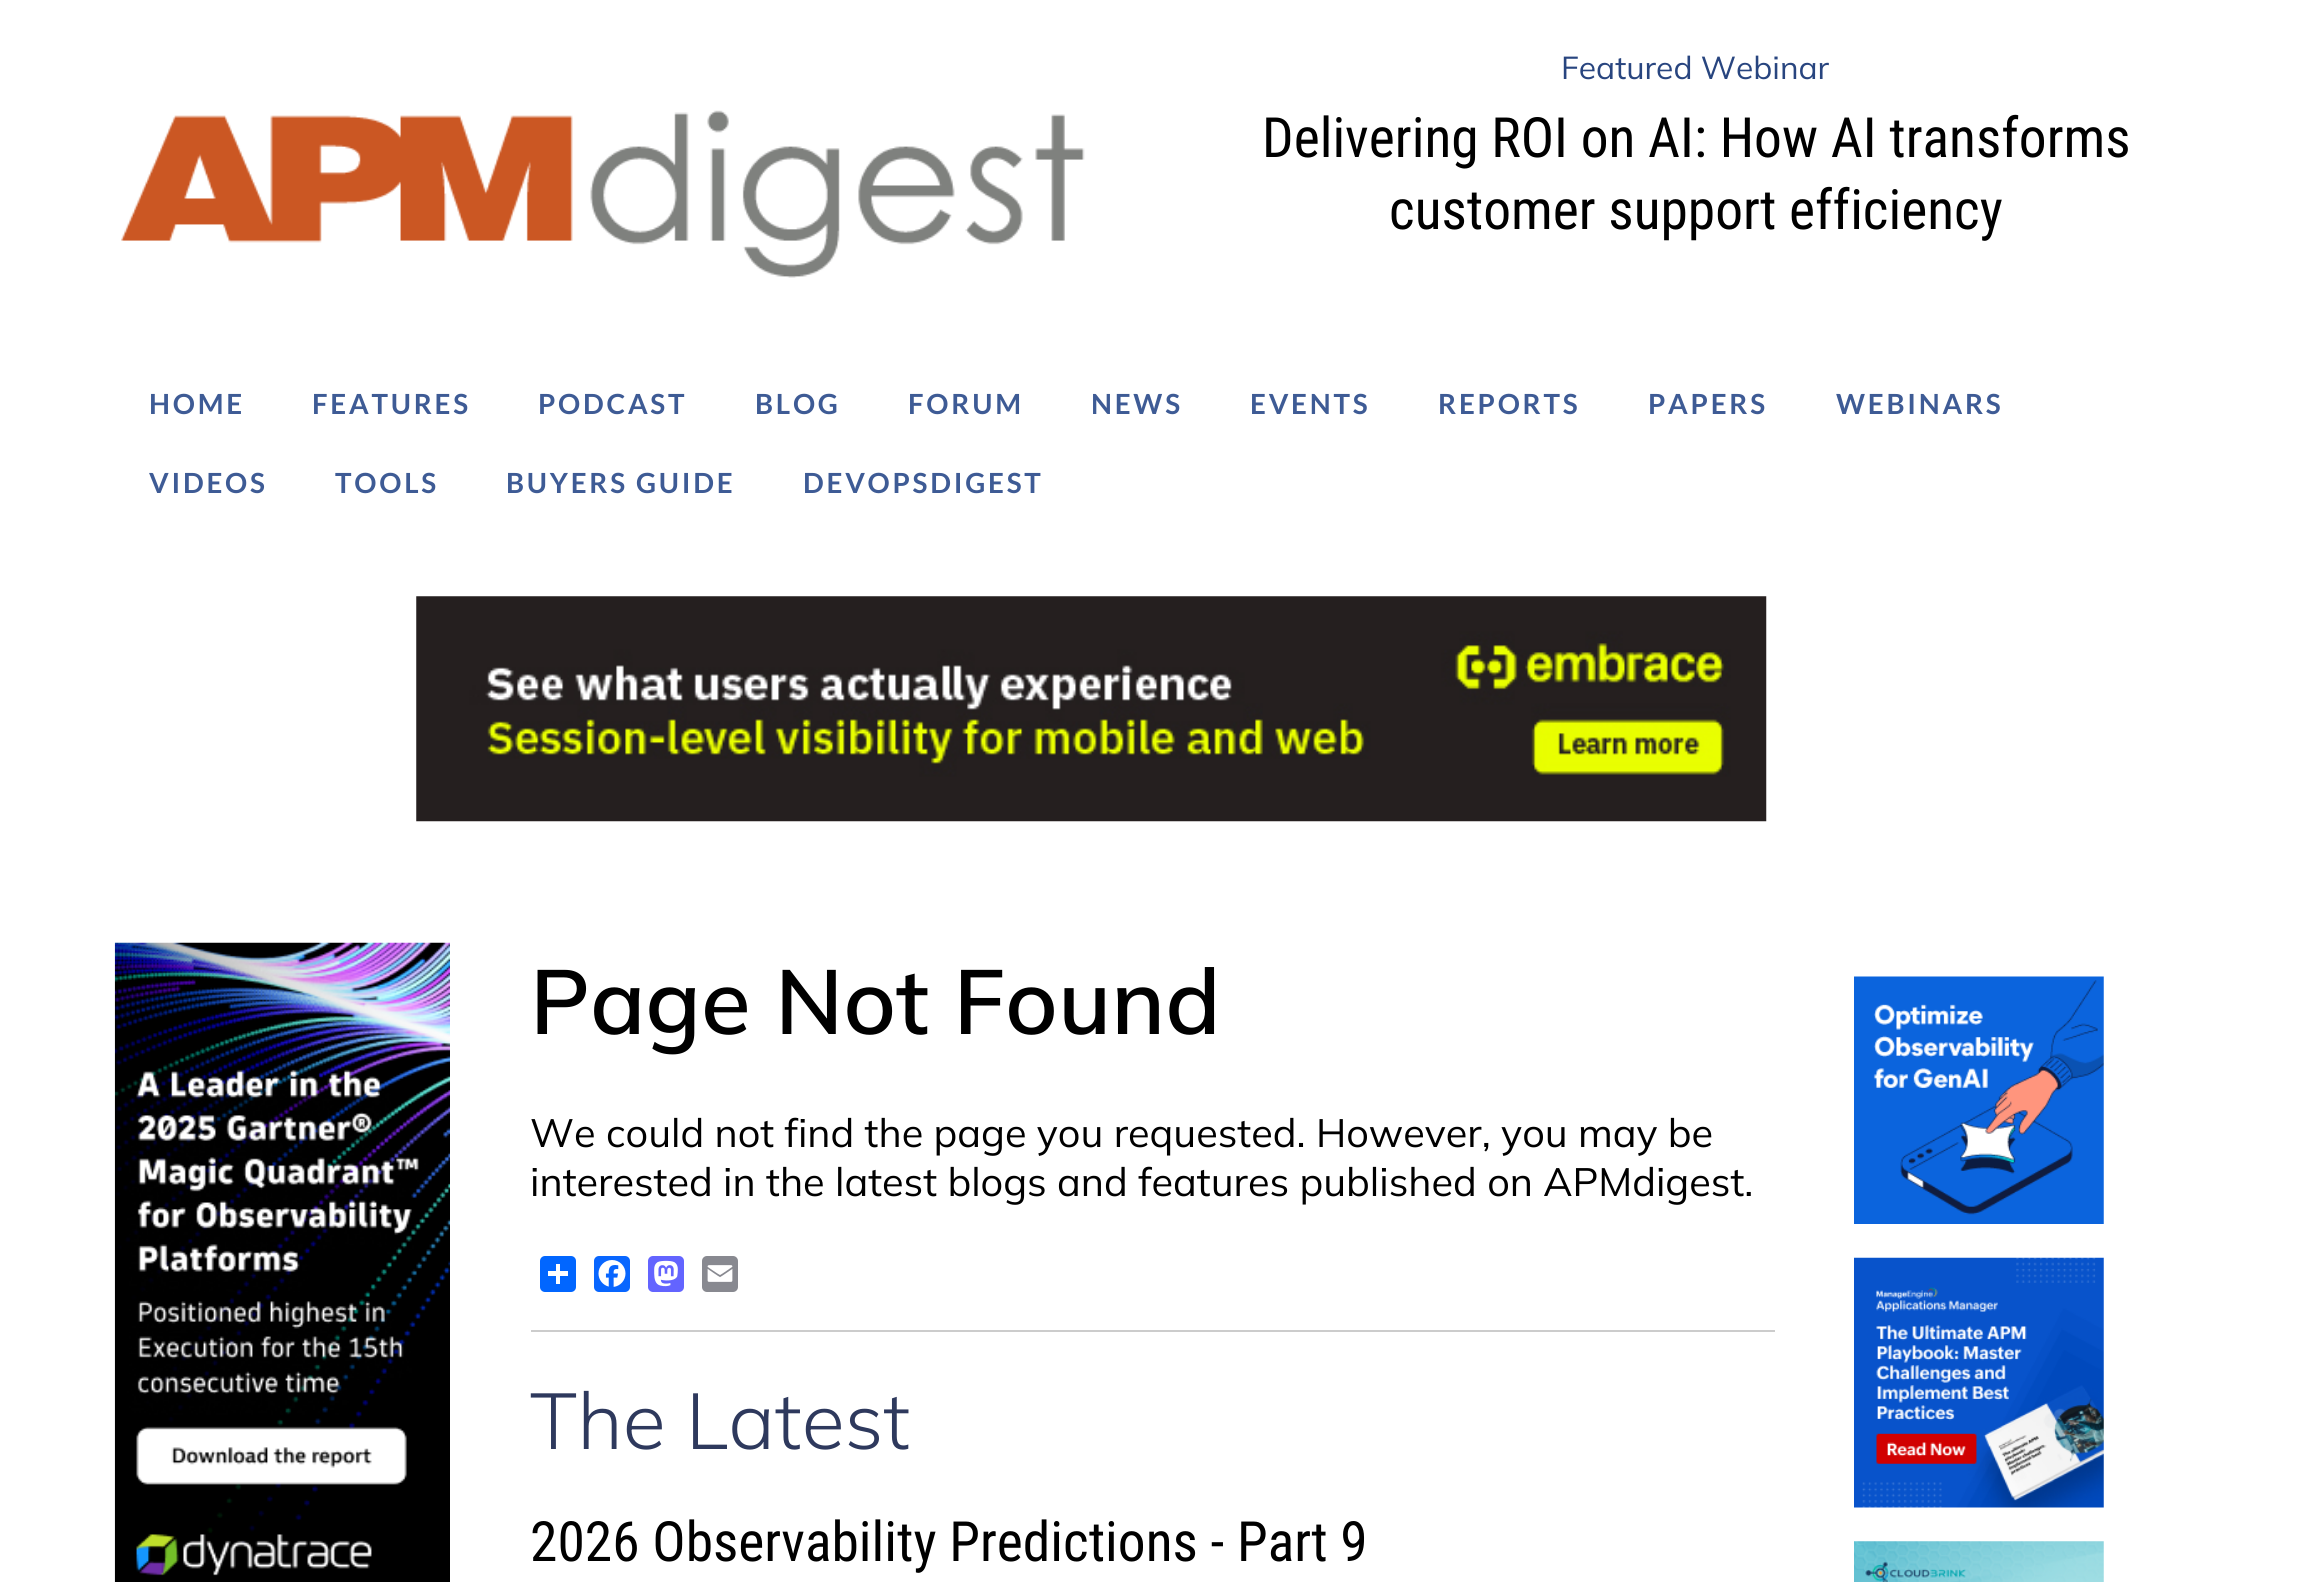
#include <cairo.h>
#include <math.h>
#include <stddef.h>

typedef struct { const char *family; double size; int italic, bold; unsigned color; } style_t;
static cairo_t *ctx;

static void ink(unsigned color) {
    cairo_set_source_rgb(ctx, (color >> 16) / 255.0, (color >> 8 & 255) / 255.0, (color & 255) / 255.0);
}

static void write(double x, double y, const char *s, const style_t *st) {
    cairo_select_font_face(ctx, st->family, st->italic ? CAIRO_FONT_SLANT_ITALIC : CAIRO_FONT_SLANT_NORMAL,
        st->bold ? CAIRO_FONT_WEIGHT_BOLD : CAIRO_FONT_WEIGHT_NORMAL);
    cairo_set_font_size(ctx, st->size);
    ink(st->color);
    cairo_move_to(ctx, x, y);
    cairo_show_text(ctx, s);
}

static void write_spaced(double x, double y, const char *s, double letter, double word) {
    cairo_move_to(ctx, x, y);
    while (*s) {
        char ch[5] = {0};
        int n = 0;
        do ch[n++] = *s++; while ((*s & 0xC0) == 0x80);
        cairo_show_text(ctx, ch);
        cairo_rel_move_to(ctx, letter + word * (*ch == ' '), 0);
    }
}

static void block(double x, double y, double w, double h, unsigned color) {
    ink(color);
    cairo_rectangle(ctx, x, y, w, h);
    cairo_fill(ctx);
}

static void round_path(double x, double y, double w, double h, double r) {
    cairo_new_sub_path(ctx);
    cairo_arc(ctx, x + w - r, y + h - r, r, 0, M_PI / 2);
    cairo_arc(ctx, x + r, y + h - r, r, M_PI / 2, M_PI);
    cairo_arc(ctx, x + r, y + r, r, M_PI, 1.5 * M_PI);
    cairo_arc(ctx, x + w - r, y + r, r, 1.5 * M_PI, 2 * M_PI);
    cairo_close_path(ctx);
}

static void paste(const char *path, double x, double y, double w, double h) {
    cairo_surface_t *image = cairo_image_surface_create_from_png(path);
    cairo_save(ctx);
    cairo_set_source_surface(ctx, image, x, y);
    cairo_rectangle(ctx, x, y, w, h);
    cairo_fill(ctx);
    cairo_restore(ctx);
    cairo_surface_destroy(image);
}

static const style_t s1 = {"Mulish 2 ExtraLight", 31.75, 0, 0, 0x28457f};
static const style_t s2 = {"Roboto Condensed", 55.5, 0, 0, 0x000000};
static const style_t s3 = {"Mulish ExtraLight", 91, 0, 0, 0x000000};
static const style_t s4 = {"Mulish 2 ExtraLight", 39.6, 0, 0, 0x000000};
static const style_t s5 = {"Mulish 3 ExtraLight", 79, 0, 0, 0x2e395d};

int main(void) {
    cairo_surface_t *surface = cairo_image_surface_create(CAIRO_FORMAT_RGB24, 2297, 1582);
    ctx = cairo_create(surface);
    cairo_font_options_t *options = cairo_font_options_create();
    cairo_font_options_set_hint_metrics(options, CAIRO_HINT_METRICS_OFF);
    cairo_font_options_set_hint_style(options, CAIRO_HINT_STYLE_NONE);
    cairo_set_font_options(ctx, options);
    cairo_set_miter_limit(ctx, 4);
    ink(0xffffff);
    cairo_paint(ctx);
    paste("pic1.png", 121, 110, 964, 168);
    write(1561, 79, "Featured Webinar", &s1);
    write(1262, 157, "Delivering ROI on AI: How AI transforms", &s2);
    write(1389, 229, "customer support efficiency", &s2);
    cairo_select_font_face(ctx, "Lato", CAIRO_FONT_SLANT_NORMAL, CAIRO_FONT_WEIGHT_BOLD);
    cairo_set_font_size(ctx, 27.75);
    ink(0x3e5b95);
    write_spaced(149, 414, "HOME", 2.75, 0);
    write_spaced(312, 414, "FEATURES", 2.75, 0);
    write_spaced(538, 414, "PODCAST", 2.75, 0);
    write_spaced(755, 414, "BLOG", 2.75, 0);
    write_spaced(908, 414, "FORUM", 2.75, 0);
    write_spaced(1091, 414, "NEWS", 2.75, 0);
    write_spaced(1250, 414, "EVENTS", 2.75, 0);
    write_spaced(1438, 414, "REPORTS", 2.75, 0);
    write_spaced(1648, 414, "PAPERS", 2.75, 0);
    write_spaced(1836, 414, "WEBINARS", 2.75, 0);
    write_spaced(149, 493, "VIDEOS", 2.75, 0);
    write_spaced(335, 493, "TOOLS", 2.75, 0);
    write_spaced(506, 493, "BUYERS GUIDE", 2.75, 0);
    write_spaced(803, 493, "DEVOPSDIGEST", 2.75, 0);
    paste("pic2.png", 416, 596, 1351, 226);
    paste("pic3.png", 114, 942, 336, 640);
    write(530, 1034, "Page Not Found", &s3);
    write(530, 1147, "We could not find the page you requested. However, you may be", &s4);
    write(530, 1196, "interested in the latest blogs and features published on APMdigest.", &s4);
    ink(0x0166ff);
    round_path(540, 1256, 36, 36, 5);
    cairo_fill(ctx);
    block(556, 1264, 4, 20, 0xffffff);
    block(548, 1271, 20, 5, 0xffffff);
    ink(0x0866ff);
    round_path(594, 1256, 36, 36, 5);
    cairo_fill(ctx);
    paste("pic4.png", 598, 1260, 28, 27);
    ink(0x6364ff);
    round_path(648, 1256, 36, 36, 5);
    cairo_fill(ctx);
    paste("pic5.png", 654, 1260, 24, 27);
    ink(0x888990);
    round_path(702, 1256, 36, 36, 5);
    cairo_fill(ctx);
    paste("pic6.png", 707, 1265, 26, 17);
    block(531, 1330, 1244, 2, 0xcccccc);
    write(530, 1449, "The Latest", &s5);
    write(530, 1561, "2026 Observability Predictions - Part 9", &s2);
    paste("pic7.png", 1854, 976, 250, 248);
    paste("pic8.png", 1854, 1257, 250, 251);
    paste("pic9.png", 1854, 1541, 250, 41);
    cairo_surface_write_to_png(surface, "screenshot.png");
    cairo_font_options_destroy(options);
    cairo_destroy(ctx);
    cairo_surface_destroy(surface);
    return 0;
}
